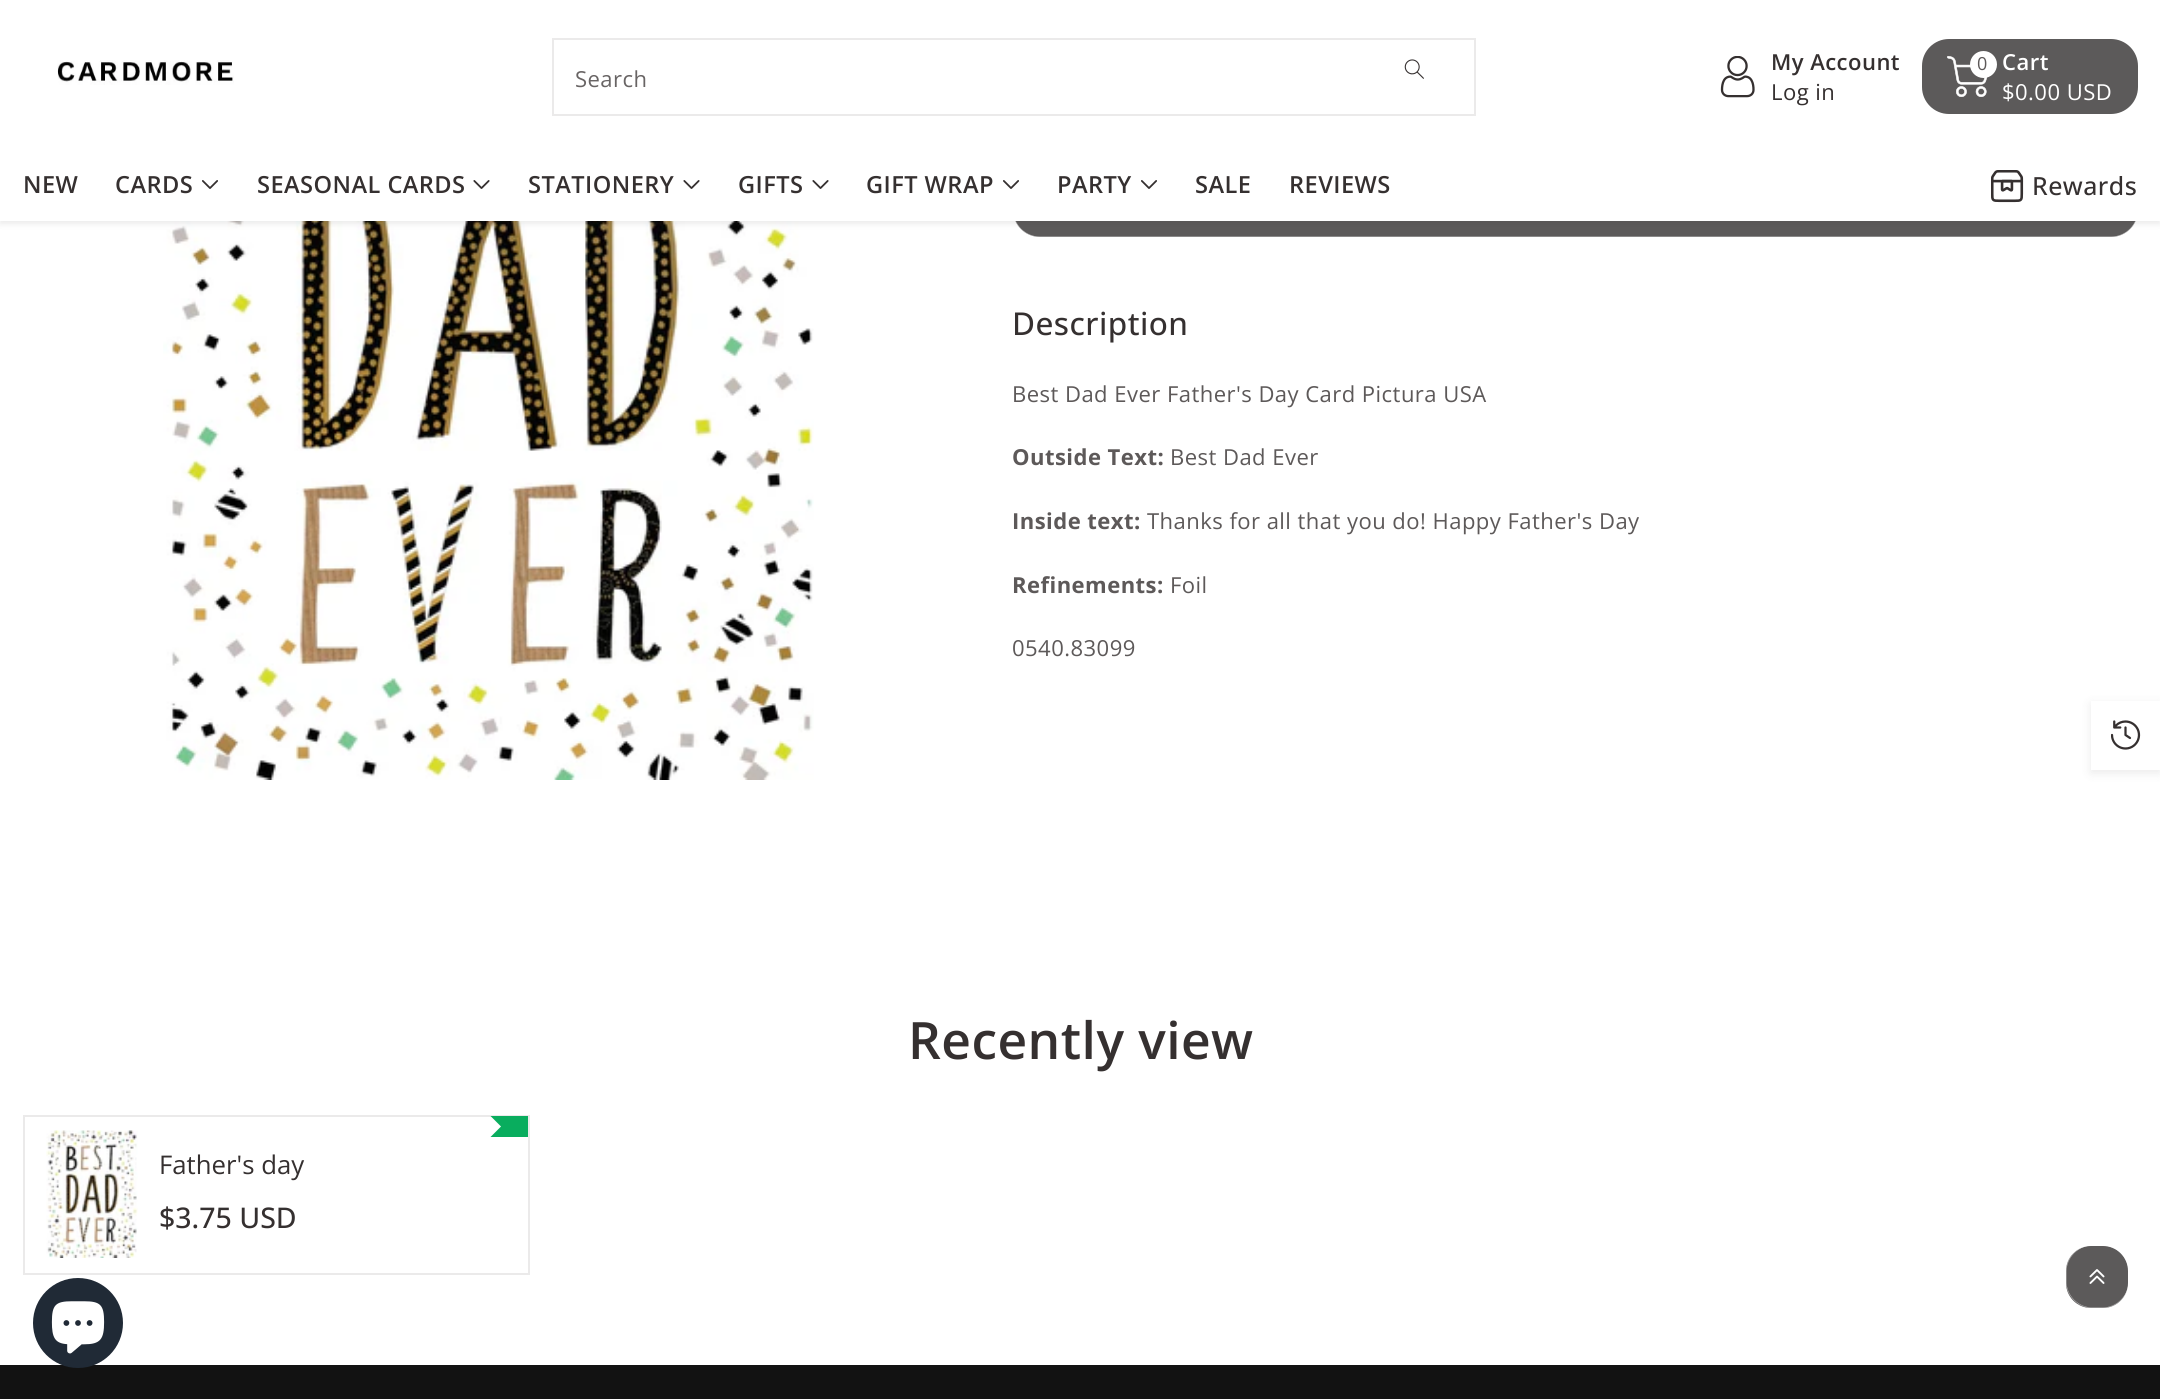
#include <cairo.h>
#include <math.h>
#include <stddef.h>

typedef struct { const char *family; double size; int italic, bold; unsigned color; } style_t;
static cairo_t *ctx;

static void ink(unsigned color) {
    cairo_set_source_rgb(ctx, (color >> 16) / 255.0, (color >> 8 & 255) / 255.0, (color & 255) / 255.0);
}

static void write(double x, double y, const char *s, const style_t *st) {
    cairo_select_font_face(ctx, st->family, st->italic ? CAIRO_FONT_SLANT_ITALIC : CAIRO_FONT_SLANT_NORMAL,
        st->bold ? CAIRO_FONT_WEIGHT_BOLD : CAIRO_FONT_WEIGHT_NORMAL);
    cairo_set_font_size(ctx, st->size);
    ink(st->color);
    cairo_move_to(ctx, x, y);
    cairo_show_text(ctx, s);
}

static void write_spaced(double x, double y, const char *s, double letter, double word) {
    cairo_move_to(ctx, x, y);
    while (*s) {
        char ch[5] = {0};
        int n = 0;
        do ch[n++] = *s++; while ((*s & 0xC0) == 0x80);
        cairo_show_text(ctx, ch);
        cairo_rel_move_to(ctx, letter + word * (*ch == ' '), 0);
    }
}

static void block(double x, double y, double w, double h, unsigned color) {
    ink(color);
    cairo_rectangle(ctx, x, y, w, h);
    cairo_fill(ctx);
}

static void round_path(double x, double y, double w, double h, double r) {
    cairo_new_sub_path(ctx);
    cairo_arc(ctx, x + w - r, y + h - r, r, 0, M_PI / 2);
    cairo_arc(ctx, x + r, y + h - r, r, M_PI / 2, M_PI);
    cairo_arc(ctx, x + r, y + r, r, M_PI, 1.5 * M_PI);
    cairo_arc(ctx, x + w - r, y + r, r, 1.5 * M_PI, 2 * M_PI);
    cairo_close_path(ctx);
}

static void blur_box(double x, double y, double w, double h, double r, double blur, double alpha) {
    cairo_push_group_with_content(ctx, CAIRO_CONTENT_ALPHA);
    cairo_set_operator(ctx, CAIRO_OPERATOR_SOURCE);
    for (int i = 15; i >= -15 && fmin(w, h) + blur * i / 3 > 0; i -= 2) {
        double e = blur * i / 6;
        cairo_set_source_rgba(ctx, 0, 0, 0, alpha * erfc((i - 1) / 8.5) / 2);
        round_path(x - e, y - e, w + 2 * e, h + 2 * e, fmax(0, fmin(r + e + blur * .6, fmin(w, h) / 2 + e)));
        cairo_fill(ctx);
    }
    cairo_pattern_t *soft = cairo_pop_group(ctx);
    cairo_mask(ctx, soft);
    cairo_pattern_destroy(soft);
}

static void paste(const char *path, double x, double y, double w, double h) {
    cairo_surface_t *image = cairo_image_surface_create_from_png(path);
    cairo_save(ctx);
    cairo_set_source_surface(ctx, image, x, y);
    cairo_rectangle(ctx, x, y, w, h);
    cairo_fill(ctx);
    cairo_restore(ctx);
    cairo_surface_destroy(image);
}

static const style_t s1 = {"Open Sans", 25.75, 0, 0, 0x353030};
static const style_t s2 = {"Open Sans Medium", 28.5, 0, 0, 0x353030};

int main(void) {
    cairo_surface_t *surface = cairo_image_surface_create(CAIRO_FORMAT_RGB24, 2160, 1399);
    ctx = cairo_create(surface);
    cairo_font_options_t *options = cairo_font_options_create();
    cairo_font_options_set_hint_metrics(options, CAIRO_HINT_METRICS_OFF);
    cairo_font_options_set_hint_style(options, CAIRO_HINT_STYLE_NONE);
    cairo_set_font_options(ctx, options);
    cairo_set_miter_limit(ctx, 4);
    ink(0xffffff);
    cairo_paint(ctx);
    paste("pic8.png", 163, 221, 651, 559);
    ink(0x5c5a5a);
    round_path(1013, 170, 1125, 67, 27);
    cairo_fill(ctx);
    round_path(1013.2, 170.2, 1124.6, 66.6, 26.8);
    cairo_set_source_rgba(ctx, 1, 1, 1, 0.7);
    cairo_set_line_width(ctx, 0.4);
    cairo_stroke(ctx);
    ink(0x353030);
    blur_box(0, 3, 2160, 221, 0, 3, 0.1);
    block(0, 0, 2160, 221, 0xffffff);
    paste("pic1.png", 57, 60, 177, 25);
    paste("pic2.png", 1404, 59, 20, 20);
    cairo_rectangle(ctx, 553, 39, 922, 76);
    ink(0xebeaea);
    cairo_set_line_width(ctx, 2);
    cairo_stroke(ctx);
    cairo_select_font_face(ctx, "Open Sans", CAIRO_FONT_SLANT_NORMAL, CAIRO_FONT_WEIGHT_NORMAL);
    cairo_set_font_size(ctx, 22.05);
    ink(0x686464);
    write_spaced(575, 87, "Search", 0.45, 0);
    paste("pic3.png", 1720, 56, 35, 42);
    cairo_select_font_face(ctx, "Open Sans SemiBold", CAIRO_FONT_SLANT_NORMAL, CAIRO_FONT_WEIGHT_NORMAL);
    ink(0x353030);
    write_spaced(1771, 70, "My Account", 0.45, 0);
    cairo_select_font_face(ctx, "Open Sans", CAIRO_FONT_SLANT_NORMAL, CAIRO_FONT_WEIGHT_NORMAL);
    write_spaced(1771, 100, "Log in", 0.45, 0);
    ink(0x5c5a5a);
    round_path(1922, 39, 216, 75, 27);
    cairo_fill(ctx);
    paste("pic4.png", 1947, 56, 41, 41);
    cairo_select_font_face(ctx, "Open Sans SemiBold", CAIRO_FONT_SLANT_NORMAL, CAIRO_FONT_WEIGHT_NORMAL);
    ink(0xffffff);
    write_spaced(2002, 70, "Cart", 0.45, 0);
    cairo_select_font_face(ctx, "Open Sans", CAIRO_FONT_SLANT_NORMAL, CAIRO_FONT_WEIGHT_NORMAL);
    write_spaced(2002, 100, "$0.00 USD", 0.45, 0);
    cairo_new_path(ctx);
    cairo_arc(ctx, 1983.5, 64.5, 13.5, 0, 2 * M_PI);
    cairo_fill(ctx);
    cairo_set_font_size(ctx, 18);
    ink(0x5d5959);
    write_spaced(1977, 70, "0", 0.45, 0);
    cairo_select_font_face(ctx, "Open Sans SemiBold", CAIRO_FONT_SLANT_NORMAL, CAIRO_FONT_WEIGHT_NORMAL);
    cairo_set_font_size(ctx, 23.6);
    ink(0x353030);
    write_spaced(23, 193, "NEW", 0.45, 0);
    write_spaced(115, 193, "CARDS", 0.45, 0);
    paste("pic5.png", 202, 180, 16, 9);
    write_spaced(257, 193, "SEASONAL CARDS", 0.45, 0);
    paste("pic6.png", 473, 180, 17, 9);
    write_spaced(528, 193, "STATIONERY", 0.45, 0);
    paste("pic6.png", 683, 180, 17, 9);
    write_spaced(738, 193, "GIFTS", 0.45, 0);
    paste("pic6.png", 812, 180, 17, 9);
    write_spaced(866, 193, "GIFT WRAP", 0.45, 0);
    paste("pic5.png", 1003, 180, 16, 9);
    write_spaced(1057, 193, "PARTY", 0.45, 0);
    paste("pic5.png", 1141, 180, 16, 9);
    write_spaced(1195, 193, "SALE", 0.45, 0);
    write_spaced(1289, 193, "REVIEWS", 0.45, 0);
    paste("pic7.png", 1991, 170, 33, 33);
    cairo_select_font_face(ctx, "Open Sans Medium", CAIRO_FONT_SLANT_NORMAL, CAIRO_FONT_WEIGHT_NORMAL);
    cairo_set_font_size(ctx, 25);
    write_spaced(2032, 195, "Rewards", 0.45, 0);
    cairo_set_font_size(ctx, 31.5);
    write_spaced(1012, 335, "Description", 0.45, 0);
    cairo_select_font_face(ctx, "Open Sans", CAIRO_FONT_SLANT_NORMAL, CAIRO_FONT_WEIGHT_NORMAL);
    cairo_set_font_size(ctx, 22.05);
    ink(0x5d5959);
    write_spaced(1012, 402, "Best Dad Ever Father's Day Card Pictura USA", 0.45, 0);
    cairo_select_font_face(ctx, "Open Sans", CAIRO_FONT_SLANT_NORMAL, CAIRO_FONT_WEIGHT_BOLD);
    write_spaced(1012, 465, "Outside Text:", 0.45, 0);
    cairo_select_font_face(ctx, "Open Sans", CAIRO_FONT_SLANT_NORMAL, CAIRO_FONT_WEIGHT_NORMAL);
    write_spaced(1170, 465, "Best Dad Ever", 0.45, 0);
    cairo_select_font_face(ctx, "Open Sans", CAIRO_FONT_SLANT_NORMAL, CAIRO_FONT_WEIGHT_BOLD);
    write_spaced(1012, 529, "Inside text:", 0.45, 0);
    cairo_select_font_face(ctx, "Open Sans", CAIRO_FONT_SLANT_NORMAL, CAIRO_FONT_WEIGHT_NORMAL);
    write_spaced(1147, 529, "Thanks for all that you do! Happy Father's Day", 0.45, 0);
    cairo_select_font_face(ctx, "Open Sans", CAIRO_FONT_SLANT_NORMAL, CAIRO_FONT_WEIGHT_BOLD);
    write_spaced(1012, 593, "Refinements:", 0.45, 0);
    cairo_select_font_face(ctx, "Open Sans", CAIRO_FONT_SLANT_NORMAL, CAIRO_FONT_WEIGHT_NORMAL);
    write_spaced(1170, 593, "Foil", 0.45, 0);
    write_spaced(1012, 656, "0540.83099", 0.45, 0);
    cairo_select_font_face(ctx, "Open Sans SemiBold", CAIRO_FONT_SLANT_NORMAL, CAIRO_FONT_WEIGHT_NORMAL);
    cairo_set_font_size(ctx, 51.5);
    ink(0x353030);
    write_spaced(908, 1059, "Recently view", 0.45, 0);
    cairo_rectangle(ctx, 24, 1116, 505, 158);
    ink(0xebeaea);
    cairo_stroke(ctx);
    ink(0x09ad5e);
    cairo_new_path(ctx);
    cairo_move_to(ctx, 490.5, 1116);
    cairo_line_to(ctx, 528, 1116);
    cairo_line_to(ctx, 501, 1126.5);
    cairo_close_path(ctx);
    cairo_fill(ctx);
    block(501, 1116, 27, 21, 0x09ad5e);
    cairo_new_path(ctx);
    cairo_move_to(ctx, 528, 1137);
    cairo_line_to(ctx, 490.5, 1137);
    cairo_line_to(ctx, 501, 1126.5);
    cairo_close_path(ctx);
    cairo_fill(ctx);
    paste("pic9.png", 46, 1130, 92, 128);
    write(159, 1174, "Father's day", &s1);
    write(159, 1228, "$3.75 USD", &s2);
    ink(0x353030);
    blur_box(2091, 704, 69, 69, 0, 5, 0.1);
    block(2091, 701, 69, 69, 0xffffff);
    paste("pic10.png", 2111, 720, 30, 30);
    ink(0x5c5a5a);
    round_path(2065, 1245, 64, 64, 26);
    cairo_fill_preserve(ctx);
    ink(0xffffff);
    cairo_stroke(ctx);
    paste("pic11.png", 2089, 1269, 16, 15);
    round_path(2066.2, 1245.2, 62.6, 62.6, 26.8);
    cairo_set_source_rgba(ctx, 1, 1, 1, 0.7);
    cairo_set_line_width(ctx, 0.4);
    cairo_stroke(ctx);
    block(0, 1365, 2160, 34, 0x121212);
    ink(0x202a36);
    cairo_arc(ctx, 78, 1323, 45, 0, 2 * M_PI);
    cairo_fill(ctx);
    paste("pic12.png", 51, 1301, 54, 53);
    cairo_surface_write_to_png(surface, "screenshot.png");
    cairo_font_options_destroy(options);
    cairo_destroy(ctx);
    cairo_surface_destroy(surface);
    return 0;
}
